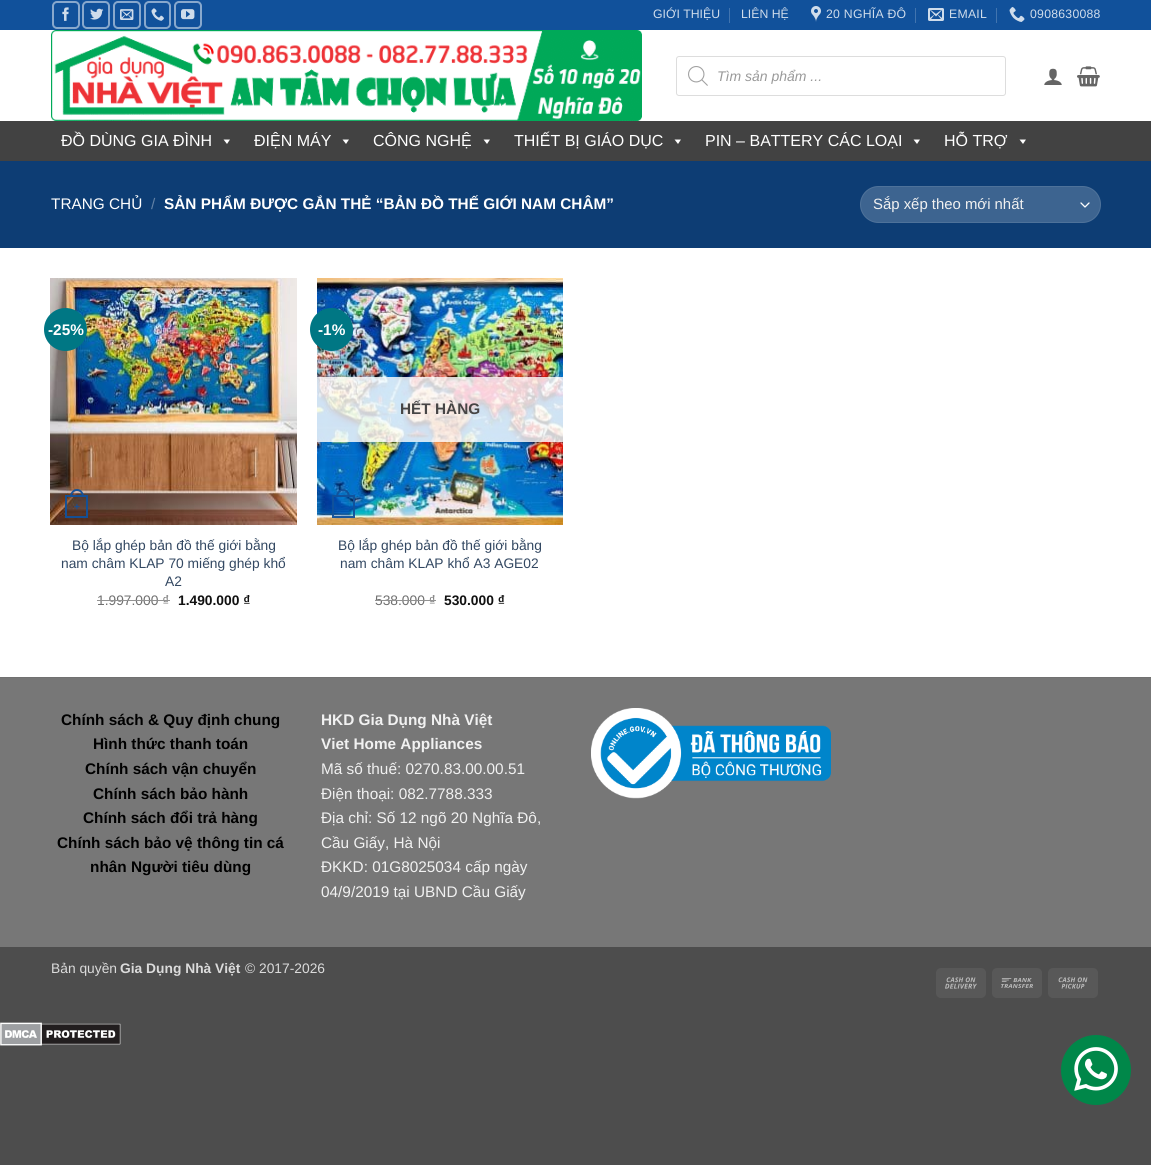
#include <cairo.h>
#include <math.h>
#include <stddef.h>

typedef struct { const char *family; double size; int italic, bold; unsigned color; } style_t;
static cairo_t *ctx;

static void ink(unsigned color) {
    cairo_set_source_rgb(ctx, (color >> 16) / 255.0, (color >> 8 & 255) / 255.0, (color & 255) / 255.0);
}

static void write(double x, double y, const char *s, const style_t *st) {
    cairo_select_font_face(ctx, st->family, st->italic ? CAIRO_FONT_SLANT_ITALIC : CAIRO_FONT_SLANT_NORMAL,
        st->bold ? CAIRO_FONT_WEIGHT_BOLD : CAIRO_FONT_WEIGHT_NORMAL);
    cairo_set_font_size(ctx, st->size);
    ink(st->color);
    cairo_move_to(ctx, x, y);
    cairo_show_text(ctx, s);
}

static void write_spaced(double x, double y, const char *s, double letter, double word) {
    cairo_move_to(ctx, x, y);
    while (*s) {
        char ch[5] = {0};
        int n = 0;
        do ch[n++] = *s++; while ((*s & 0xC0) == 0x80);
        cairo_show_text(ctx, ch);
        cairo_rel_move_to(ctx, letter + word * (*ch == ' '), 0);
    }
}

static void block(double x, double y, double w, double h, unsigned color) {
    ink(color);
    cairo_rectangle(ctx, x, y, w, h);
    cairo_fill(ctx);
}

static void round_path(double x, double y, double w, double h, double r) {
    cairo_new_sub_path(ctx);
    cairo_arc(ctx, x + w - r, y + h - r, r, 0, M_PI / 2);
    cairo_arc(ctx, x + r, y + h - r, r, M_PI / 2, M_PI);
    cairo_arc(ctx, x + r, y + r, r, M_PI, 1.5 * M_PI);
    cairo_arc(ctx, x + w - r, y + r, r, 1.5 * M_PI, 2 * M_PI);
    cairo_close_path(ctx);
}

static void paste(const char *path, double x, double y, double w, double h) {
    cairo_surface_t *image = cairo_image_surface_create_from_png(path);
    cairo_save(ctx);
    cairo_set_source_surface(ctx, image, x, y);
    cairo_rectangle(ctx, x, y, w, h);
    cairo_fill(ctx);
    cairo_restore(ctx);
    cairo_surface_destroy(image);
}

static const style_t s1 = {"Liberation Sans", 12.25, 0, 0, 0xcfdceb};
static const style_t s2 = {"Liberation Sans", 14, 1, 0, 0x999999};
static const style_t s3 = {"Liberation Sans", 16, 0, 0, 0xffffff};
static const style_t s4 = {"Liberation Sans", 15.35, 0, 0, 0xffffff};
static const style_t s5 = {"Liberation Sans", 15.35, 0, 0, 0x6281a5};
static const style_t s6 = {"Liberation Sans", 15.35, 0, 1, 0xffffff};
static const style_t s7 = {"Liberation Sans", 14.9, 0, 0, 0xf1f1f1};
static const style_t s8 = {"Liberation Sans", 10, 0, 1, 0x155096};
static const style_t s9 = {"Liberation Sans", 13.8, 0, 0, 0x334862};
static const style_t s10 = {"Liberation Sans", 13.8, 0, 0, 0x707070};
static const style_t s11 = {"Liberation Sans", 13.8, 0, 1, 0x111111};
static const style_t s12 = {"Liberation Sans", 15.35, 0, 1, 0x464545};
static const style_t s13 = {"Liberation Sans", 15.35, 0, 1, 0x000000};
static const style_t s14 = {"Liberation Sans", 15.35, 0, 1, 0xf1f1f1};
static const style_t s15 = {"Liberation Sans", 15.35, 0, 0, 0xf1f1f1};
static const style_t s16 = {"Liberation Sans", 13.8, 0, 0, 0xdbdbdb};
static const style_t s17 = {"Liberation Sans", 13.8, 0, 1, 0xdbdbdb};

int main(void) {
    cairo_surface_t *surface = cairo_image_surface_create(CAIRO_FORMAT_RGB24, 1151, 1165);
    ctx = cairo_create(surface);
    cairo_font_options_t *options = cairo_font_options_create();
    cairo_font_options_set_hint_metrics(options, CAIRO_HINT_METRICS_OFF);
    cairo_font_options_set_hint_style(options, CAIRO_HINT_STYLE_NONE);
    cairo_set_font_options(ctx, options);
    cairo_set_miter_limit(ctx, 4);
    ink(0x4d4d4d);
    cairo_paint(ctx);
    block(0, 30, 1151, 647, 0xffffff);
    block(0, 0, 1151, 30, 0x11519b);
    round_path(53, 2, 26, 26, 4);
    ink(0x88a8cd);
    cairo_stroke(ctx);
    paste("pic1.png", 62, 7, 7, 14);
    round_path(83, 2, 26, 26, 4);
    cairo_stroke(ctx);
    paste("pic2.png", 90, 8, 14, 12);
    round_path(114, 2, 26, 26, 4);
    cairo_stroke(ctx);
    paste("pic3.png", 120, 9, 14, 11);
    round_path(145, 2, 25, 26, 4);
    cairo_stroke(ctx);
    paste("pic4.png", 151, 8, 13, 13);
    round_path(175, 2, 26, 26, 4);
    cairo_stroke(ctx);
    paste("pic5.png", 181, 9, 14, 11);
    write(653, 18, "GIỚI THIỆU", &s1);
    block(729, 8, 1, 15, 0x4174af);
    write(741, 18, "LIÊN HỆ", &s1);
    paste("pic6.png", 811, 6, 10, 16);
    write_spaced(826, 18, "20 NGHĨA ĐÔ", 0.25, 0);
    block(915, 8, 1, 15, 0x4174af);
    paste("pic7.png", 928, 8, 16, 13);
    ink(0xcfdceb);
    write_spaced(949, 18, "EMAIL", 0.25, 0);
    block(996, 8, 1, 15, 0x4174af);
    paste("pic8.png", 1009, 7, 16, 15);
    ink(0xcfdceb);
    write_spaced(1030, 18, "0908630088", 0.25, 0);
    paste("pic9.png", 51, 30, 591, 91);
    round_path(676.5, 56.5, 329, 39, 2.5);
    ink(0xdddddd);
    cairo_set_line_width(ctx, 1);
    cairo_stroke(ctx);
    paste("pic10.png", 688, 66, 20, 20);
    write(717, 81, "Tìm sản phẩm ...", &s2);
    paste("pic11.png", 1044, 68, 18, 17);
    paste("pic12.png", 1077, 66, 23, 21);
    block(0, 121, 1151, 40, 0x424242);
    write(61, 146, "ĐỒ DÙNG GIA ĐÌNH", &s3);
    cairo_new_path(ctx);
    cairo_move_to(ctx, 230, 139.5);
    cairo_line_to(ctx, 227, 144);
    cairo_line_to(ctx, 223.5, 139.5);
    cairo_close_path(ctx);
    cairo_fill(ctx);
    write(254, 146, "ĐIỆN MÁY", &s3);
    cairo_new_path(ctx);
    cairo_move_to(ctx, 349, 139.5);
    cairo_line_to(ctx, 346, 144);
    cairo_line_to(ctx, 342.5, 139.5);
    cairo_close_path(ctx);
    cairo_fill(ctx);
    write(373, 146, "CÔNG NGHỆ", &s3);
    cairo_new_path(ctx);
    cairo_move_to(ctx, 490, 139.5);
    cairo_line_to(ctx, 487, 144);
    cairo_line_to(ctx, 483.5, 139.5);
    cairo_close_path(ctx);
    cairo_fill(ctx);
    write(514, 146, "THIẾT BỊ GIÁO DỤC", &s3);
    cairo_new_path(ctx);
    cairo_move_to(ctx, 681, 139.5);
    cairo_line_to(ctx, 678, 144);
    cairo_line_to(ctx, 674.5, 139.5);
    cairo_close_path(ctx);
    cairo_fill(ctx);
    write(705, 146, "PIN – BATTERY CÁC LOẠI", &s3);
    cairo_new_path(ctx);
    cairo_move_to(ctx, 920, 139.5);
    cairo_line_to(ctx, 917, 144);
    cairo_line_to(ctx, 913.5, 139.5);
    cairo_close_path(ctx);
    cairo_fill(ctx);
    write(944, 146, "HỖ TRỢ", &s3);
    cairo_new_path(ctx);
    cairo_move_to(ctx, 1026, 139.5);
    cairo_line_to(ctx, 1023, 144);
    cairo_line_to(ctx, 1019.5, 139.5);
    cairo_close_path(ctx);
    cairo_fill(ctx);
    block(0, 161, 1151, 87, 0x0d3d74);
    write(51, 209, "TRANG CHỦ", &s4);
    write(151, 209, "/", &s5);
    write(164, 209, "SẢN PHẨM ĐƯỢC GẮN THẺ “BẢN ĐỒ THẾ GIỚI NAM CHÂM”", &s6);
    ink(0x3d6490);
    round_path(860, 186, 241, 37, 18.5);
    cairo_fill(ctx);
    cairo_new_path(ctx);
    cairo_move_to(ctx, 1081, 203);
    cairo_line_to(ctx, 1085, 207);
    cairo_line_to(ctx, 1089, 203);
    ink(0xffffff);
    cairo_set_line_width(ctx, 1.3);
    cairo_set_line_cap(ctx, CAIRO_LINE_CAP_ROUND);
    cairo_set_line_join(ctx, CAIRO_LINE_JOIN_ROUND);
    cairo_stroke(ctx);
    round_path(860.5, 186.5, 240, 36, 18);
    cairo_set_source_rgba(ctx, 1, 1, 1, 0.09);
    cairo_set_line_width(ctx, 1);
    cairo_set_line_cap(ctx, CAIRO_LINE_CAP_BUTT);
    cairo_set_line_join(ctx, CAIRO_LINE_JOIN_MITER);
    cairo_stroke(ctx);
    write(873, 209, "Sắp xếp theo mới nhất", &s7);
    paste("pic13.png", 50, 278, 247, 247);
    ink(0x007784);
    cairo_arc(ctx, 65.5, 329.5, 21.5, 0, 2 * M_PI);
    cairo_fill(ctx);
    write(48, 335, "-25%", &s6);
    cairo_rectangle(ctx, 66, 496, 21, 21);
    cairo_set_source_rgba(ctx, 0.067, 0.318, 0.608, 0.95);
    cairo_set_line_width(ctx, 2);
    cairo_stroke(ctx);
    cairo_set_fill_rule(ctx, CAIRO_FILL_RULE_EVEN_ODD);
    cairo_new_path(ctx);
    cairo_move_to(ctx, 77, 489);
    cairo_curve_to(ctx, 81.5, 489, 84, 493, 84, 497);
    cairo_line_to(ctx, 70, 497);
    cairo_curve_to(ctx, 70, 493, 72.5, 489, 77, 489);
    cairo_close_path(ctx);
    cairo_move_to(ctx, 77, 491);
    cairo_curve_to(ctx, 80.5, 491, 82, 494, 82, 497);
    cairo_line_to(ctx, 72, 497);
    cairo_curve_to(ctx, 72, 494, 73.5, 491, 77, 491);
    cairo_close_path(ctx);
    cairo_fill(ctx);
    write(74, 510, "+", &s8);
    write(72, 550, "Bộ lắp ghép bản đồ thế giới bằng", &s9);
    write(61, 568, "nam châm KLAP 70 miếng ghép khổ", &s9);
    write(165, 586, "A2", &s9);
    write(97, 605, "1.997.000 ₫", &s10);
    block(97, 600, 73, 1, 0x929292);
    write(178, 605, "1.490.000 ₫", &s11);
    paste("pic14.png", 317, 278, 246, 247);
    ink(0x007784);
    cairo_arc(ctx, 331.5, 329.5, 21.5, 0, 2 * M_PI);
    cairo_fill(ctx);
    write(318, 335, "-1%", &s6);
    cairo_set_source_rgba(ctx, 1, 1, 1, 0.81);
    cairo_rectangle(ctx, 317, 377, 246, 65);
    cairo_fill(ctx);
    write(400, 414, "HẾT HÀNG", &s12);
    cairo_rectangle(ctx, 333, 496, 21, 21);
    cairo_set_source_rgba(ctx, 0.067, 0.318, 0.608, 0.95);
    cairo_stroke(ctx);
    cairo_new_path(ctx);
    cairo_move_to(ctx, 343, 489);
    cairo_curve_to(ctx, 347.5, 489, 350, 493, 350, 497);
    cairo_line_to(ctx, 336, 497);
    cairo_curve_to(ctx, 336, 493, 338.5, 489, 343, 489);
    cairo_close_path(ctx);
    cairo_move_to(ctx, 343, 491);
    cairo_curve_to(ctx, 346.5, 491, 348, 494, 348, 497);
    cairo_line_to(ctx, 338, 497);
    cairo_curve_to(ctx, 338, 494, 339.5, 491, 343, 491);
    cairo_close_path(ctx);
    cairo_fill(ctx);
    write(338, 550, "Bộ lắp ghép bản đồ thế giới bằng", &s9);
    write(340, 568, "nam châm KLAP khổ A3 AGE02", &s9);
    write(375, 605, "538.000 ₫", &s10);
    block(375, 600, 61, 1, 0x929292);
    write(444, 605, "530.000 ₫", &s11);
    block(0, 678, 1151, 269, 0x777777);
    block(0, 677, 1151, 1, 0x717171);
    write(61, 725, "Chính sách & Quy định chung", &s13);
    write(93, 749, "Hình thức thanh toán", &s13);
    write(85, 774, "Chính sách vận chuyển", &s13);
    write(93, 799, "Chính sách bảo hành", &s13);
    write(83, 823, "Chính sách đổi trả hàng", &s13);
    write(57, 848, "Chính sách bảo vệ thông tin cá", &s13);
    write(90, 872, "nhân Người tiêu dùng", &s13);
    write(321, 725, "HKD Gia Dụng Nhà Việt", &s14);
    write(321, 749, "Viet Home Appliances", &s14);
    write(321, 774, "Mã số thuế: 0270.83.00.00.51", &s15);
    write(321, 799, "Điện thoại: 082.7788.333", &s15);
    write(321, 823, "Địa chỉ: Số 12 ngõ 20 Nghĩa Đô,", &s15);
    write(321, 848, "Cầu Giấy, Hà Nội", &s15);
    write(321, 872, "ĐKKD: 01G8025034 cấp ngày", &s15);
    write(321, 897, "04/9/2019 tại UBND Cầu Giấy", &s15);
    paste("pic15.png", 591, 708, 240, 91);
    write(51, 973, "Bản quyền", &s16);
    write(120, 973, "Gia Dụng Nhà Việt", &s17);
    write(245, 973, "© 2017-2026", &s16);
    ink(0x585858);
    round_path(936, 968, 50, 30, 5);
    cairo_fill(ctx);
    paste("pic16.png", 945, 977, 32, 12);
    round_path(992, 968, 50, 30, 5);
    cairo_fill(ctx);
    paste("pic17.png", 1001, 978, 32, 10);
    round_path(1048, 968, 50, 30, 5);
    cairo_fill(ctx);
    paste("pic18.png", 1058, 977, 30, 12);
    paste("pic19.png", 0, 1022, 121, 24);
    ink(0x008749);
    cairo_arc(ctx, 1096, 1070, 35, 0, 2 * M_PI);
    cairo_fill(ctx);
    paste("pic20.png", 1074, 1047, 44, 44);
    cairo_surface_write_to_png(surface, "screenshot.png");
    cairo_font_options_destroy(options);
    cairo_destroy(ctx);
    cairo_surface_destroy(surface);
    return 0;
}
